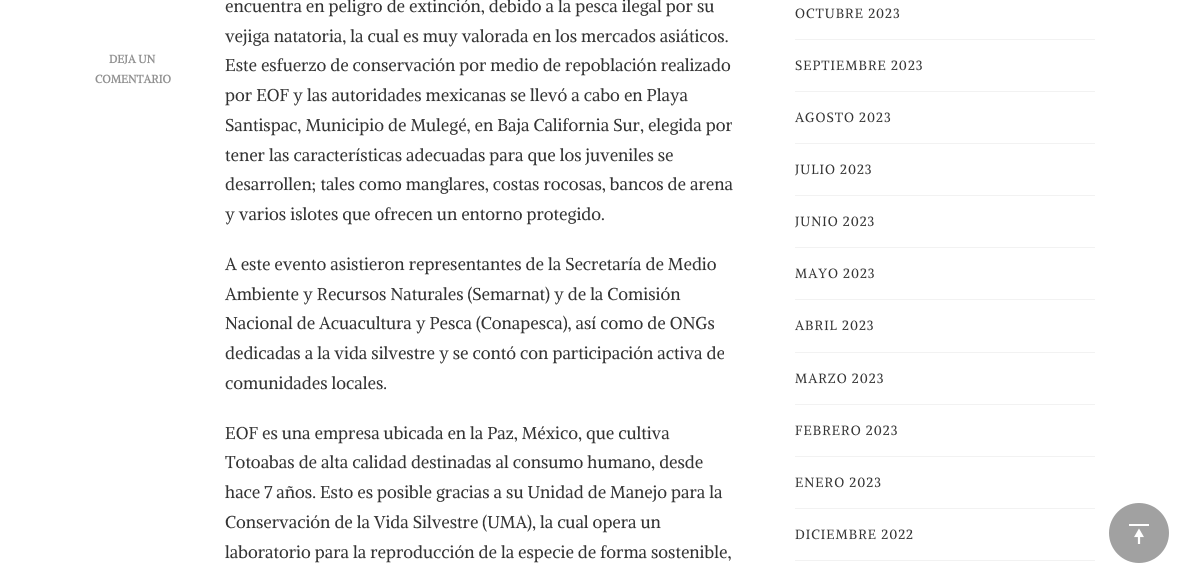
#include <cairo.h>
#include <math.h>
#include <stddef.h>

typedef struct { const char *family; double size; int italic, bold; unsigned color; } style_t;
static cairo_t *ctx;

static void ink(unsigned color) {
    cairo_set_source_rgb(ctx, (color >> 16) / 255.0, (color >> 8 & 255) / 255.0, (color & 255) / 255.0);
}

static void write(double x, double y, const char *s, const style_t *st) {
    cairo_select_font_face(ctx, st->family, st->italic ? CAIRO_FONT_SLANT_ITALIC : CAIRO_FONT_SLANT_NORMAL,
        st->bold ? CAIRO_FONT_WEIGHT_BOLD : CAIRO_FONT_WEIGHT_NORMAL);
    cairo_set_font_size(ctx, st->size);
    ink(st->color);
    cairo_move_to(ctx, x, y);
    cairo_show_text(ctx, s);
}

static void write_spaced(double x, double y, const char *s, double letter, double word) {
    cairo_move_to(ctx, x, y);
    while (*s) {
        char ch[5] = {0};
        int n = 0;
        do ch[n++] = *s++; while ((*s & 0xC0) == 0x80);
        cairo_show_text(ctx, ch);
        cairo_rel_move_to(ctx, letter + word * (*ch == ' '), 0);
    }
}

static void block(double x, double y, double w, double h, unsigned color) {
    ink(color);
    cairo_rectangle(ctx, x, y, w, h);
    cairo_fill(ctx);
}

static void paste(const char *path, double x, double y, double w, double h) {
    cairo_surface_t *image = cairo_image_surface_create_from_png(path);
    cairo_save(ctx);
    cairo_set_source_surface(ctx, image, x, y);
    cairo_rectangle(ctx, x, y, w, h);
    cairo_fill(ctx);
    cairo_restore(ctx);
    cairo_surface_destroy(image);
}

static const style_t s1 = {"Alike Angular", 11.25, 0, 1, 0x909090};
static const style_t s2 = {"Alike Angular", 17, 0, 0, 0x333333};

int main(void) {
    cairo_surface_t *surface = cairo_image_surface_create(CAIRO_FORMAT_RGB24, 1189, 583);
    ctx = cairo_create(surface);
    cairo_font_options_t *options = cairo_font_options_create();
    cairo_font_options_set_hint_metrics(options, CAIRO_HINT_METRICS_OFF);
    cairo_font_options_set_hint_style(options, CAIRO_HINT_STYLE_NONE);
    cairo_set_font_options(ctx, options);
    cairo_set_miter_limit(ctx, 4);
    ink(0xffffff);
    cairo_paint(ctx);
    write(109, 63, "DEJA UN", &s1);
    write(95, 83, "COMENTARIO", &s1);
    write(225, 12, "encuentra en peligro de extinción, debido a la pesca ilegal por su", &s2);
    write(225, 42, "vejiga natatoria, la cual es muy valorada en los mercados asiáticos.", &s2);
    write(225, 71, "Este esfuerzo de conservación por medio de repoblación realizado", &s2);
    write(225, 101, "por EOF y las autoridades mexicanas se llevó a cabo en Playa", &s2);
    write(225, 131, "Santispac, Municipio de Mulegé, en Baja California Sur, elegida por", &s2);
    write(225, 161, "tener las características adecuadas para que los juveniles se", &s2);
    write(225, 190, "desarrollen; tales como manglares, costas rocosas, bancos de arena", &s2);
    write(225, 220, "y varios islotes que ofrecen un entorno protegido.", &s2);
    write(225, 270, "A este evento asistieron representantes de la Secretaría de Medio", &s2);
    write(225, 300, "Ambiente y Recursos Naturales (Semarnat) y de la Comisión", &s2);
    write(225, 329, "Nacional de Acuacultura y Pesca (Conapesca), así como de ONGs", &s2);
    write(225, 359, "dedicadas a la vida silvestre y se contó con participación activa de", &s2);
    write(225, 389, "comunidades locales.", &s2);
    write(225, 439, "EOF es una empresa ubicada en la Paz, México, que cultiva", &s2);
    write(225, 468, "Totoabas de alta calidad destinadas al consumo humano, desde", &s2);
    write(225, 498, "hace 7 años. Esto es posible gracias a su Unidad de Manejo para la", &s2);
    write(225, 528, "Conservación de la Vida Silvestre (UMA), la cual opera un", &s2);
    write(225, 558, "laboratorio para la reproducción de la especie de forma sostenible,", &s2);
    block(795, 39, 300, 1, 0xf2f2f2);
    cairo_set_font_size(ctx, 13.25);
    ink(0x333333);
    write_spaced(795, 18, "OCTUBRE 2023", 1, 0);
    block(795, 91, 300, 1, 0xf2f2f2);
    ink(0x333333);
    write_spaced(795, 70, "SEPTIEMBRE 2023", 1, 0);
    block(795, 143, 300, 1, 0xf2f2f2);
    ink(0x333333);
    write_spaced(795, 122, "AGOSTO 2023", 1, 0);
    block(795, 195, 300, 1, 0xf2f2f2);
    ink(0x333333);
    write_spaced(795, 174, "JULIO 2023", 1, 0);
    block(795, 247, 300, 1, 0xf2f2f2);
    ink(0x333333);
    write_spaced(795, 226, "JUNIO 2023", 1, 0);
    block(795, 299, 300, 1, 0xf2f2f2);
    ink(0x333333);
    write_spaced(795, 278, "MAYO 2023", 1, 0);
    block(795, 352, 300, 1, 0xf2f2f2);
    ink(0x333333);
    write_spaced(795, 330, "ABRIL 2023", 1, 0);
    block(795, 404, 300, 1, 0xf2f2f2);
    ink(0x333333);
    write_spaced(795, 383, "MARZO 2023", 1, 0);
    block(795, 456, 300, 1, 0xf2f2f2);
    ink(0x333333);
    write_spaced(795, 435, "FEBRERO 2023", 1, 0);
    block(795, 508, 300, 1, 0xf2f2f2);
    ink(0x333333);
    write_spaced(795, 487, "ENERO 2023", 1, 0);
    block(795, 560, 300, 1, 0xf2f2f2);
    ink(0x333333);
    write_spaced(795, 539, "DICIEMBRE 2022", 1, 0);
    ink(0xa1a1a1);
    cairo_new_path(ctx);
    cairo_arc(ctx, 1139, 533, 30, 0, 2 * M_PI);
    cairo_fill(ctx);
    paste("pic1.png", 1129, 524, 20, 20);
    cairo_surface_write_to_png(surface, "screenshot.png");
    cairo_font_options_destroy(options);
    cairo_destroy(ctx);
    cairo_surface_destroy(surface);
    return 0;
}
